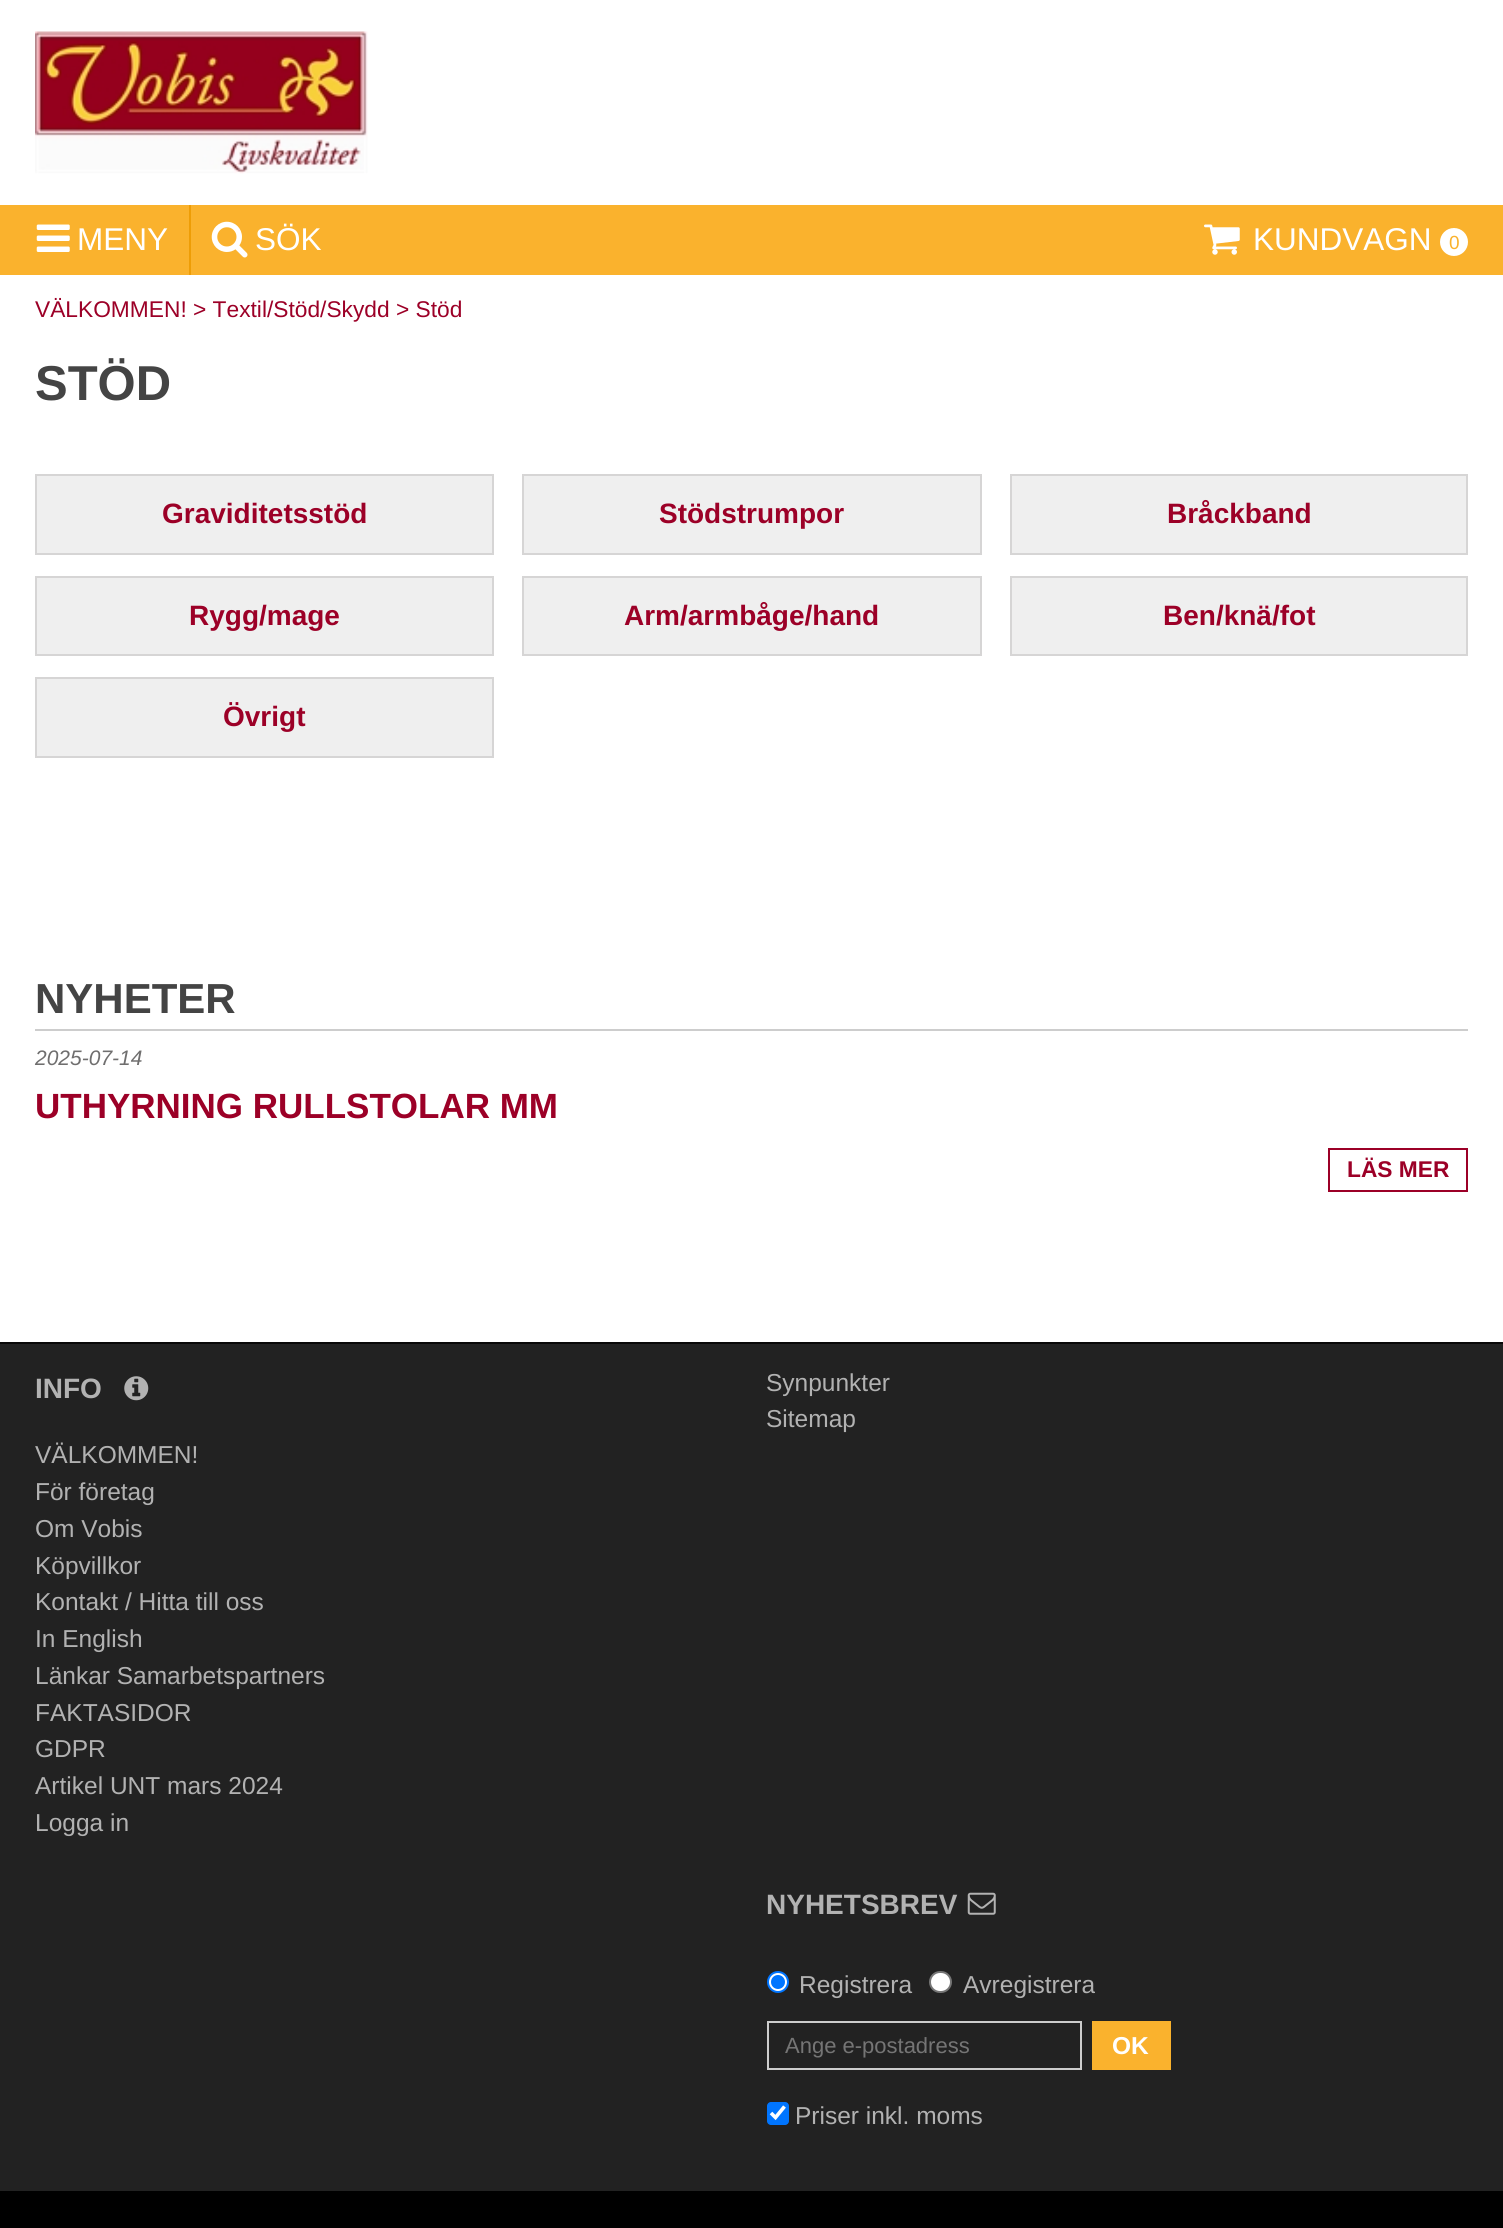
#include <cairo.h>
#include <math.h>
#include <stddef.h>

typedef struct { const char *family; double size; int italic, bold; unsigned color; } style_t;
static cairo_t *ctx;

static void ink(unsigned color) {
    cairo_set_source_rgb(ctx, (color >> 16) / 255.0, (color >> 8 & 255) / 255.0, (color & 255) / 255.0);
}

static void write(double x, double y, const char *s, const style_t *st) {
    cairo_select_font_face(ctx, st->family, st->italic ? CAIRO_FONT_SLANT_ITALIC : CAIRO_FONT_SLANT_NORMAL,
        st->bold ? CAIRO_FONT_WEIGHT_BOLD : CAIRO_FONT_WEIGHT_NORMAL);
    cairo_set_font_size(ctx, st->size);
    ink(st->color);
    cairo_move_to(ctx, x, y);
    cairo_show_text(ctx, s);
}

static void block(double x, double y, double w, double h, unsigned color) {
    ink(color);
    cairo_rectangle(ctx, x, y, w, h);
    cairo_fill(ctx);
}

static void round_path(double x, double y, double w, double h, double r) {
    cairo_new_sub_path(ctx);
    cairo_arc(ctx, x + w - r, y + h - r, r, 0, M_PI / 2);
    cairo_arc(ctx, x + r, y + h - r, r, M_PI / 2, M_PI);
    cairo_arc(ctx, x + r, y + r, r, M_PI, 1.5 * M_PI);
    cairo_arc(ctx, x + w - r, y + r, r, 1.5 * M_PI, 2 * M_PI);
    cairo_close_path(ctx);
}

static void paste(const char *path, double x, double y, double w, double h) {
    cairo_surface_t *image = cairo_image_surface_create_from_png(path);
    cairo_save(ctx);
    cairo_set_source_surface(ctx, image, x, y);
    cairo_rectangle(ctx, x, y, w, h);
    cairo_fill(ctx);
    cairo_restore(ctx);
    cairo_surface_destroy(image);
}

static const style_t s1 = {"Liberation Sans", 31.5, 0, 0, 0xffffff};
static const style_t s2 = {"Liberation Sans", 19, 0, 0, 0xfab22d};
static const style_t s3 = {"Liberation Sans", 22.75, 0, 0, 0x9c0027};
static const style_t s4 = {"Liberation Sans", 49, 0, 1, 0x444444};
static const style_t s5 = {"Liberation Sans", 28, 0, 1, 0x9c0027};
static const style_t s6 = {"Liberation Sans", 42, 0, 1, 0x444444};
static const style_t s7 = {"Liberation Sans", 21, 1, 0, 0x6f6e6e};
static const style_t s8 = {"Liberation Sans", 35, 0, 1, 0x9c0027};
static const style_t s9 = {"Liberation Sans", 22.75, 0, 1, 0x9c0027};
static const style_t s10 = {"Liberation Sans", 28, 0, 1, 0xb2b2b2};
static const style_t s11 = {"Liberation Sans", 24.5, 0, 0, 0xb2b2b2};
static const style_t s12 = {"Liberation Sans", 22, 0, 0, 0x757575};
static const style_t s13 = {"Liberation Sans", 24.5, 0, 1, 0xffffff};

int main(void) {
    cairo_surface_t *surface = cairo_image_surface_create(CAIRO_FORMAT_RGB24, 1503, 2228);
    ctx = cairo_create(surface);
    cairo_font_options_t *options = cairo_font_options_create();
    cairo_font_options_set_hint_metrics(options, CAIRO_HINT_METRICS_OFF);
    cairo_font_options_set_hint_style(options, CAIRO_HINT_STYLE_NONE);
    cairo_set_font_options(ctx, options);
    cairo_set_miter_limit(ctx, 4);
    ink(0xffffff);
    cairo_paint(ctx);
    paste("pic1.png", 35, 31, 333, 143);
    block(0, 205, 1503, 70, 0xfab22d);
    block(189, 205, 2, 70, 0xee9d06);
    paste("pic2.png", 36, 224, 34, 28);
    write(77, 250, "MENY", &s1);
    paste("pic3.png", 211, 221, 37, 37);
    write(255, 250, "SÖK", &s1);
    paste("pic4.png", 1204, 224, 36, 31);
    write(1253, 250, "KUNDVAGN", &s1);
    cairo_new_path(ctx);
    cairo_arc(ctx, 1454, 242, 14, 0, 2 * M_PI);
    cairo_fill(ctx);
    write(1449, 249, "0", &s2);
    write(35, 317, "VÄLKOMMEN! > Textil/Stöd/Skydd > Stöd", &s3);
    write(35, 400, "STÖD", &s4);
    ink(0xefefef);
    cairo_rectangle(ctx, 36, 475, 457, 79);
    cairo_fill_preserve(ctx);
    ink(0xd6d5d5);
    cairo_stroke(ctx);
    write(162, 523, "Graviditetsstöd", &s5);
    ink(0xefefef);
    cairo_rectangle(ctx, 523, 475, 458, 79);
    cairo_fill_preserve(ctx);
    ink(0xd6d5d5);
    cairo_stroke(ctx);
    write(659, 523, "Stödstrumpor", &s5);
    ink(0xefefef);
    cairo_rectangle(ctx, 1011, 475, 456, 79);
    cairo_fill_preserve(ctx);
    ink(0xd6d5d5);
    cairo_stroke(ctx);
    write(1167, 523, "Bråckband", &s5);
    ink(0xefefef);
    cairo_rectangle(ctx, 36, 577, 457, 78);
    cairo_fill_preserve(ctx);
    ink(0xd6d5d5);
    cairo_stroke(ctx);
    write(189, 625, "Rygg/mage", &s5);
    ink(0xefefef);
    cairo_rectangle(ctx, 523, 577, 458, 78);
    cairo_fill_preserve(ctx);
    ink(0xd6d5d5);
    cairo_stroke(ctx);
    write(624, 625, "Arm/armbåge/hand", &s5);
    ink(0xefefef);
    cairo_rectangle(ctx, 1011, 577, 456, 78);
    cairo_fill_preserve(ctx);
    ink(0xd6d5d5);
    cairo_stroke(ctx);
    write(1163, 625, "Ben/knä/fot", &s5);
    ink(0xefefef);
    cairo_rectangle(ctx, 36, 678, 457, 79);
    cairo_fill_preserve(ctx);
    ink(0xd6d5d5);
    cairo_stroke(ctx);
    write(223, 726, "Övrigt", &s5);
    block(35, 1029, 1433, 2, 0xcdcdcd);
    write(35, 1013, "NYHETER", &s6);
    write(35, 1065, "2025-07-14", &s7);
    write(35, 1118, "UTHYRNING RULLSTOLAR MM", &s8);
    cairo_rectangle(ctx, 1329, 1149, 138, 42);
    cairo_stroke(ctx);
    write(1347, 1177, "LÄS MER", &s9);
    block(0, 1344, 1503, 847, 0x222222);
    block(0, 1342, 1503, 2, 0x090808);
    write(35, 1398, "INFO", &s10);
    paste("pic5.png", 124, 1376, 25, 25);
    write(35, 1463, "VÄLKOMMEN!", &s11);
    write(35, 1500, "För företag", &s11);
    write(35, 1537, "Om Vobis", &s11);
    write(35, 1574, "Köpvillkor", &s11);
    write(35, 1610, "Kontakt / Hitta till oss", &s11);
    write(35, 1647, "In English", &s11);
    write(35, 1684, "Länkar Samarbetspartners", &s11);
    write(35, 1721, "FAKTASIDOR", &s11);
    write(35, 1757, "GDPR", &s11);
    write(35, 1794, "Artikel UNT mars 2024", &s11);
    write(35, 1831, "Logga in", &s11);
    write(766, 1391, "Synpunkter", &s11);
    write(766, 1427, "Sitemap", &s11);
    write(766, 1914, "NYHETSBREV", &s10);
    paste("pic6.png", 967, 1892, 29, 23);
    ink(0xffffff);
    cairo_arc(ctx, 778, 1982, 10, 0, 2 * M_PI);
    cairo_fill_preserve(ctx);
    ink(0x0075ff);
    cairo_stroke(ctx);
    cairo_arc(ctx, 778, 1982, 7, 0, 2 * M_PI);
    cairo_fill(ctx);
    write(799, 1993, "Registrera", &s11);
    ink(0xffffff);
    round_path(930, 1972, 21, 20, 10);
    cairo_fill_preserve(ctx);
    ink(0x767676);
    cairo_stroke(ctx);
    write(963, 1993, "Avregistrera", &s11);
    cairo_rectangle(ctx, 768, 2022, 313, 47);
    ink(0xcdcdcd);
    cairo_stroke(ctx);
    write(785, 2053, "Ange e-postadress", &s12);
    block(1092, 2021, 79, 49, 0xfab22d);
    write(1112, 2054, "OK", &s13);
    ink(0x0075ff);
    round_path(767, 2102, 22, 23, 4);
    cairo_fill(ctx);
    cairo_new_path(ctx);
    cairo_move_to(ctx, 771, 2113);
    cairo_line_to(ctx, 775.5, 2117.5);
    cairo_line_to(ctx, 784.5, 2106.5);
    ink(0xffffff);
    cairo_set_line_width(ctx, 3.6);
    cairo_stroke(ctx);
    write(795, 2124, "Priser inkl. moms", &s11);
    block(0, 2191, 1503, 37, 0x000000);
    cairo_surface_write_to_png(surface, "screenshot.png");
    cairo_font_options_destroy(options);
    cairo_destroy(ctx);
    cairo_surface_destroy(surface);
    return 0;
}
